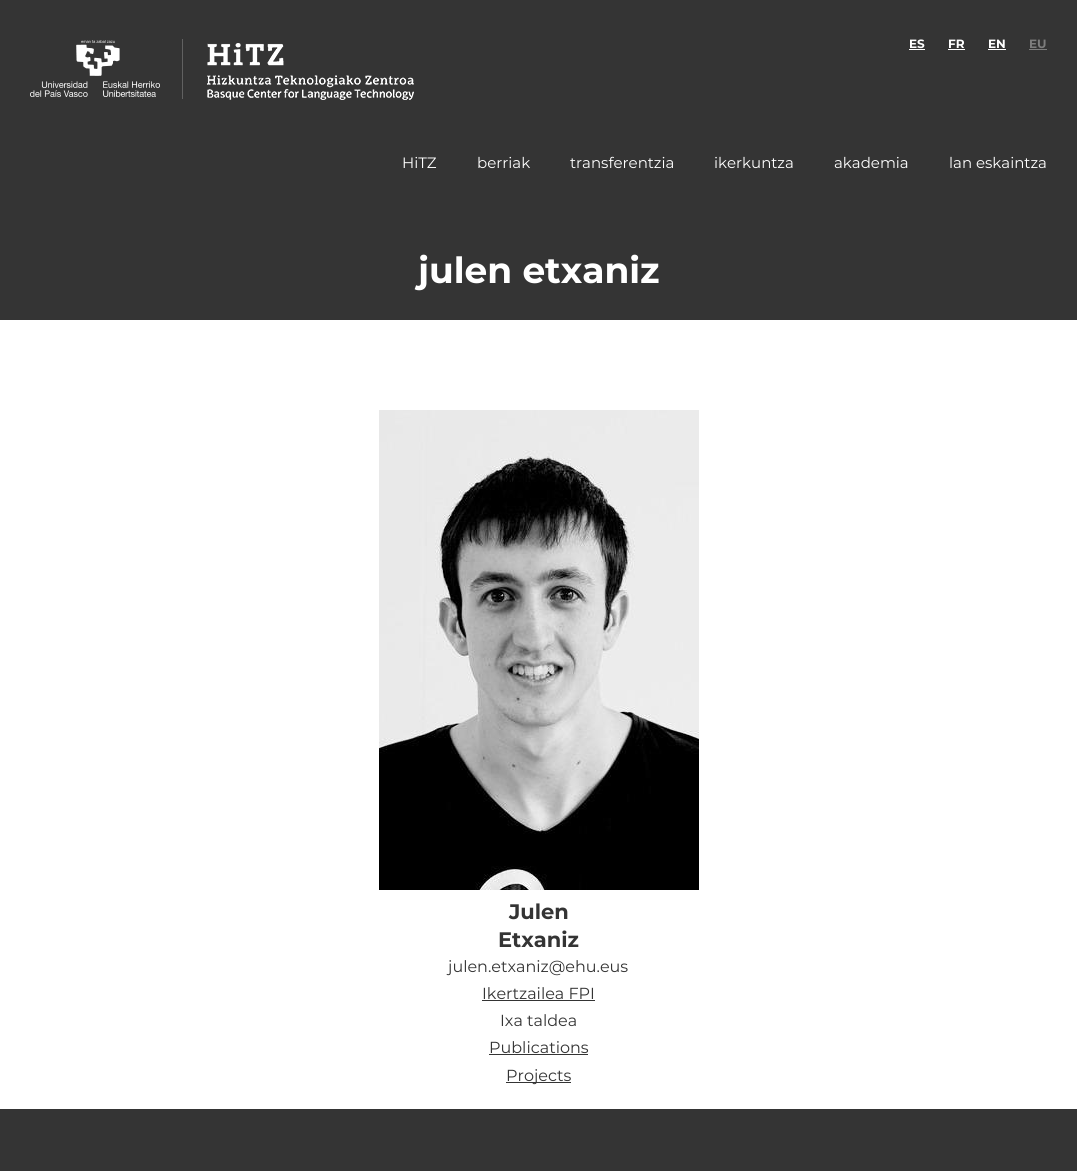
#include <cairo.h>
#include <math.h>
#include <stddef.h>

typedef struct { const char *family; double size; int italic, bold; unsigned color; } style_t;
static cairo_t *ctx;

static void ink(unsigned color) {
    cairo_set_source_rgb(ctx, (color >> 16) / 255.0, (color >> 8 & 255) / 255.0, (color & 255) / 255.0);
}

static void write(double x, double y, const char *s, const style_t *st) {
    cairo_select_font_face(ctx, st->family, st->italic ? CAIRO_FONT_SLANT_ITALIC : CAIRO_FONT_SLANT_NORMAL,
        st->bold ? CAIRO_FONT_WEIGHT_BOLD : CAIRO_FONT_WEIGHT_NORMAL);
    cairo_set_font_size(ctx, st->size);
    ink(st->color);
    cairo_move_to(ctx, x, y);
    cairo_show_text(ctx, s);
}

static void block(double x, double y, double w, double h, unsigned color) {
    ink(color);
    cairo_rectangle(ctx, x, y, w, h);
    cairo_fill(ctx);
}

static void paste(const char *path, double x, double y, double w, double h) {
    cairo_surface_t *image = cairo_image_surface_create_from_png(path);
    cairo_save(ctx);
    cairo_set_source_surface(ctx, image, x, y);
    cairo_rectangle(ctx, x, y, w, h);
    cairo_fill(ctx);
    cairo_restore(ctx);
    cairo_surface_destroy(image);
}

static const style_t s1 = {"Montserrat", 12, 0, 1, 0xffffff};
static const style_t s2 = {"Montserrat", 12, 0, 1, 0x7d7d7d};
static const style_t s3 = {"Montserrat", 15, 0, 0, 0xffffff};
static const style_t s4 = {"Montserrat", 36, 0, 1, 0xffffff};
static const style_t s5 = {"Montserrat", 21, 0, 1, 0x343434};
static const style_t s6 = {"Montserrat", 16, 0, 0, 0x343434};

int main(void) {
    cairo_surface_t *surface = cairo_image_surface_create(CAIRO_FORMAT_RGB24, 1077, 1171);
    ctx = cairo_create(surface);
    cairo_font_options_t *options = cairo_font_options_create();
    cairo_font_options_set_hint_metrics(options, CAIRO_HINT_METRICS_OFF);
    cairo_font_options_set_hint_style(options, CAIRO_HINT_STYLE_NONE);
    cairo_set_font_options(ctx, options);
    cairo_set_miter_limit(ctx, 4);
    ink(0xffffff);
    cairo_paint(ctx);
    block(0, 0, 1077, 320, 0x343434);
    write(909, 48, "ES", &s1);
    block(909, 49, 16, 1, 0xffffff);
    write(948, 48, "FR", &s1);
    block(948, 49, 17, 1, 0xffffff);
    write(988, 48, "EN", &s1);
    block(988, 49, 18, 1, 0xffffff);
    write(1029, 48, "EU", &s2);
    block(1029, 49, 18, 1, 0x7d7d7d);
    paste("pic1.png", 30, 39, 384, 61);
    write(402, 168, "HiTZ", &s3);
    write(477, 168, "berriak", &s3);
    write(570, 168, "transferentzia", &s3);
    write(714, 168, "ikerkuntza", &s3);
    write(834, 168, "akademia", &s3);
    write(949, 168, "lan eskaintza", &s3);
    write(418, 283, "julen etxaniz", &s4);
    paste("pic2.png", 379, 410, 320, 480);
    write(509, 919, "Julen", &s5);
    write(498, 947, "Etxaniz", &s5);
    write(448, 972, "julen.etxaniz@ehu.eus", &s6);
    write(482, 999, "Ikertzailea FPI", &s6);
    block(482, 1000, 113, 1, 0x343434);
    write(500, 1026, "Ixa taldea", &s6);
    write(489, 1053, "Publications", &s6);
    block(489, 1054, 99, 1, 0x343434);
    block(506, 1082, 65, 1, 0x343434);
    write(506, 1081, "Projects", &s6);
    block(0, 1109, 1077, 62, 0x343434);
    cairo_surface_write_to_png(surface, "screenshot.png");
    cairo_font_options_destroy(options);
    cairo_destroy(ctx);
    cairo_surface_destroy(surface);
    return 0;
}
